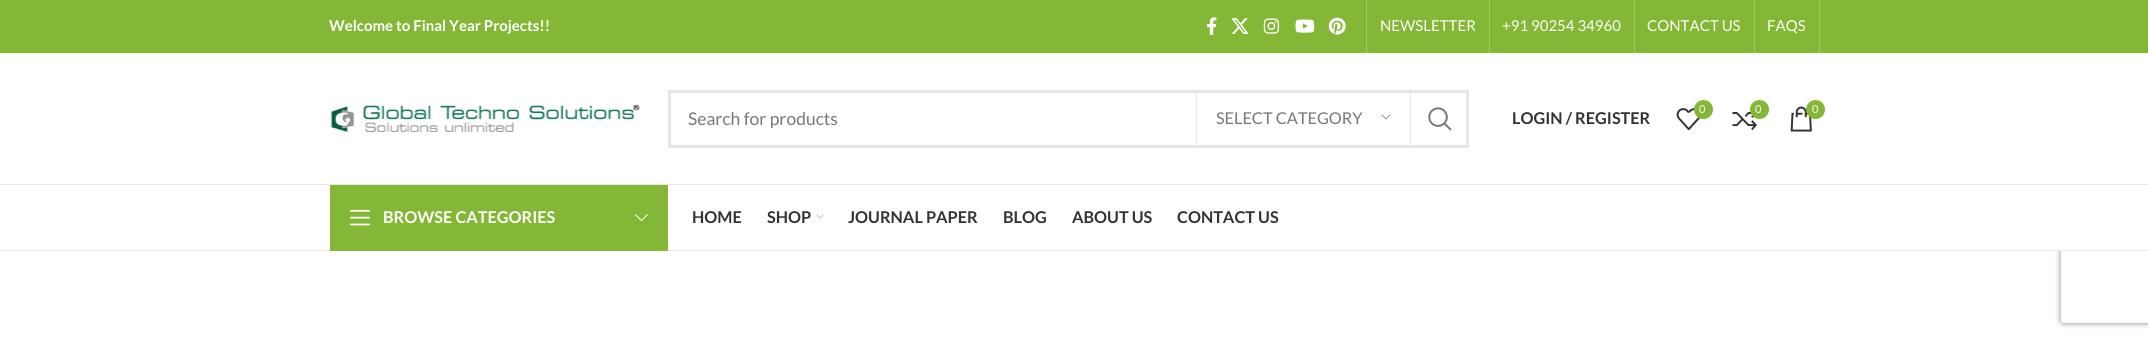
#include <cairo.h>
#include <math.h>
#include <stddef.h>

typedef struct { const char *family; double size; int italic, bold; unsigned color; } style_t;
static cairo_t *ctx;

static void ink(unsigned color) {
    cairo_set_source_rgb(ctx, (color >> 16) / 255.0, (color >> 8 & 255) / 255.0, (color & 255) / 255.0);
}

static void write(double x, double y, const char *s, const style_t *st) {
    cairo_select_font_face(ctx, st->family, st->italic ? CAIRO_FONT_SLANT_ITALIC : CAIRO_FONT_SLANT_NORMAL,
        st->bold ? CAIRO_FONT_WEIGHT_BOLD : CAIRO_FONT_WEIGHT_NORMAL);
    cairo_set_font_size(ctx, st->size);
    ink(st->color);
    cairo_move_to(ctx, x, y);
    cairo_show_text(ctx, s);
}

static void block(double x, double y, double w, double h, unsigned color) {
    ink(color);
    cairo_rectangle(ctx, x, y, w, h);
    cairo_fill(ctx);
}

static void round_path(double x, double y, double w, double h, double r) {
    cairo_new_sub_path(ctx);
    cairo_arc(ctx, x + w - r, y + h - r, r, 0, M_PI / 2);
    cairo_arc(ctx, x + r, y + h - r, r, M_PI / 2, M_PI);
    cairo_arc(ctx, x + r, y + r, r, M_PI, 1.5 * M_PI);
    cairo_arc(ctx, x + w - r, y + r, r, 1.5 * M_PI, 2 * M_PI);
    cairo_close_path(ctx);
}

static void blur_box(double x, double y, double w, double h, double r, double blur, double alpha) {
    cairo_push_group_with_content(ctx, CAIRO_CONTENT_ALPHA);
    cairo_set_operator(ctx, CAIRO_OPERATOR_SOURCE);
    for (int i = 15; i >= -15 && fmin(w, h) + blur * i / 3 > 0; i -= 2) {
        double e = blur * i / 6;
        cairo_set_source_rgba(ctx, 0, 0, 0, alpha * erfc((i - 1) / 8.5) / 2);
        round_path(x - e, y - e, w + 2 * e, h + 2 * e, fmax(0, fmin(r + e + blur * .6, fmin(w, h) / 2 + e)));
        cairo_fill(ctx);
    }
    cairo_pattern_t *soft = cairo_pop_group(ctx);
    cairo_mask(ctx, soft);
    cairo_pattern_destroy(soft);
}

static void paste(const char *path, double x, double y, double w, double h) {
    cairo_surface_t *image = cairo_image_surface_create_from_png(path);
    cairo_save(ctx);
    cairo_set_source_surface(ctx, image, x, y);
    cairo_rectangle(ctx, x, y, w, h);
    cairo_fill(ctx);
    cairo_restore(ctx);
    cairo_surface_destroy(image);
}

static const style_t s1 = {"Lato", 15, 0, 1, 0xffffff};
static const style_t s2 = {"Lato", 15, 0, 0, 0xffffff};
static const style_t s3 = {"Lato", 17.5, 0, 0, 0x777777};
static const style_t s4 = {"Lato", 16.25, 0, 0, 0x777777};
static const style_t s5 = {"Lato", 11, 0, 0, 0xffffff};
static const style_t s6 = {"Lato", 16.25, 0, 1, 0x333333};
static const style_t s7 = {"Lato", 16.25, 0, 1, 0xffffff};

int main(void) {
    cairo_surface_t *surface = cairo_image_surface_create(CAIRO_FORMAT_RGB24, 2148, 339);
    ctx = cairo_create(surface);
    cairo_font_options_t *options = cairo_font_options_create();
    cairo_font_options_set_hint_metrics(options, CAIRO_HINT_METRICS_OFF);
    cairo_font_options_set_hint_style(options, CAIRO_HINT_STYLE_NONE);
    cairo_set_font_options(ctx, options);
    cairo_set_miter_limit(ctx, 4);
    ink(0xffffff);
    cairo_paint(ctx);
    block(0, 0, 2148, 53, 0x83b735);
    write(329, 31, "Welcome to Final Year Projects!!", &s1);
    paste("pic1.png", 1207, 17, 10, 18);
    paste("pic2.png", 1231, 18, 18, 16);
    paste("pic3.png", 1263, 18, 17, 16);
    paste("pic4.png", 1295, 19, 20, 14);
    paste("pic5.png", 1328, 17, 18, 18);
    block(1366, 0, 1, 53, 0xa2c968);
    write(1380, 31, "NEWSLETTER", &s2);
    block(1489, 0, 1, 53, 0xa2c968);
    write(1502, 31, "+91 90254 34960", &s2);
    block(1634, 0, 1, 53, 0xa2c968);
    write(1647, 31, "CONTACT US", &s2);
    block(1754, 0, 1, 53, 0xa2c968);
    write(1767, 31, "FAQS", &s2);
    block(1819, 0, 1, 53, 0xa2c968);
    block(0, 184, 2148, 1, 0xe8e8e8);
    paste("pic6.png", 330, 105, 310, 27);
    cairo_rectangle(ctx, 669.5, 91.5, 798, 55);
    ink(0xe6e6e6);
    cairo_set_line_width(ctx, 3);
    cairo_stroke(ctx);
    write(688, 125, "Search for products", &s3);
    block(1410, 93, 1, 52, 0xe6e6e6);
    block(1196, 93, 1, 52, 0xe6e6e6);
    write(1216, 124, "SELECT CATEGORY", &s4);
    paste("pic7.png", 1381, 114, 10, 6);
    paste("pic8.png", 1428, 107, 24, 24);
    paste("pic9.png", 1676, 108, 24, 22);
    ink(0x83b735);
    cairo_arc(ctx, 1703.5, 109.5, 9.5, 0, 2 * M_PI);
    cairo_fill(ctx);
    write(1699, 113, "0", &s5);
    paste("pic10.png", 1732, 112, 25, 18);
    ink(0x83b735);
    cairo_arc(ctx, 1759.5, 109.5, 9.5, 0, 2 * M_PI);
    cairo_fill(ctx);
    write(1755, 113, "0", &s5);
    paste("pic11.png", 1790, 106, 22, 26);
    ink(0x83b735);
    cairo_arc(ctx, 1815.5, 109.5, 9.5, 0, 2 * M_PI);
    cairo_fill(ctx);
    write(1812, 113, "0", &s5);
    write(1512, 124, "LOGIN / REGISTER", &s6);
    cairo_save(ctx);
    cairo_set_fill_rule(ctx, CAIRO_FILL_RULE_EVEN_ODD);
    cairo_new_path(ctx);
    cairo_move_to(ctx, 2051, 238);
    cairo_line_to(ctx, 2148, 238);
    cairo_line_to(ctx, 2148, 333);
    cairo_line_to(ctx, 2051, 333);
    cairo_close_path(ctx);
    cairo_move_to(ctx, 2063.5, 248);
    cairo_line_to(ctx, 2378.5, 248);
    cairo_curve_to(ctx, 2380, 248, 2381, 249, 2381, 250.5);
    cairo_line_to(ctx, 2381, 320.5);
    cairo_curve_to(ctx, 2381, 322, 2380, 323, 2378.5, 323);
    cairo_line_to(ctx, 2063.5, 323);
    cairo_curve_to(ctx, 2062, 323, 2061, 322, 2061, 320.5);
    cairo_line_to(ctx, 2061, 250.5);
    cairo_curve_to(ctx, 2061, 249, 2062, 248, 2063.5, 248);
    cairo_close_path(ctx);
    cairo_clip(ctx);
    ink(0x808080);
    blur_box(2061, 248, 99, 75, 2.5, 3, 1);
    cairo_restore(ctx);
    block(2056, 242, 92, 8, 0xffffff);
    block(0, 250, 2148, 1, 0xe8e8e8);
    block(330, 185, 338, 66, 0x83b735);
    paste("pic12.png", 350, 209, 20, 17);
    write(383, 223, "BROWSE CATEGORIES", &s7);
    paste("pic13.png", 635, 214, 13, 8);
    write(692, 223, "HOME", &s6);
    write(767, 223, "SHOP", &s6);
    paste("pic14.png", 816, 214, 8, 5);
    write(848, 223, "JOURNAL PAPER", &s6);
    write(1003, 223, "BLOG", &s6);
    write(1072, 223, "ABOUT US", &s6);
    write(1177, 223, "CONTACT US", &s6);
    cairo_surface_write_to_png(surface, "screenshot.png");
    cairo_font_options_destroy(options);
    cairo_destroy(ctx);
    cairo_surface_destroy(surface);
    return 0;
}
